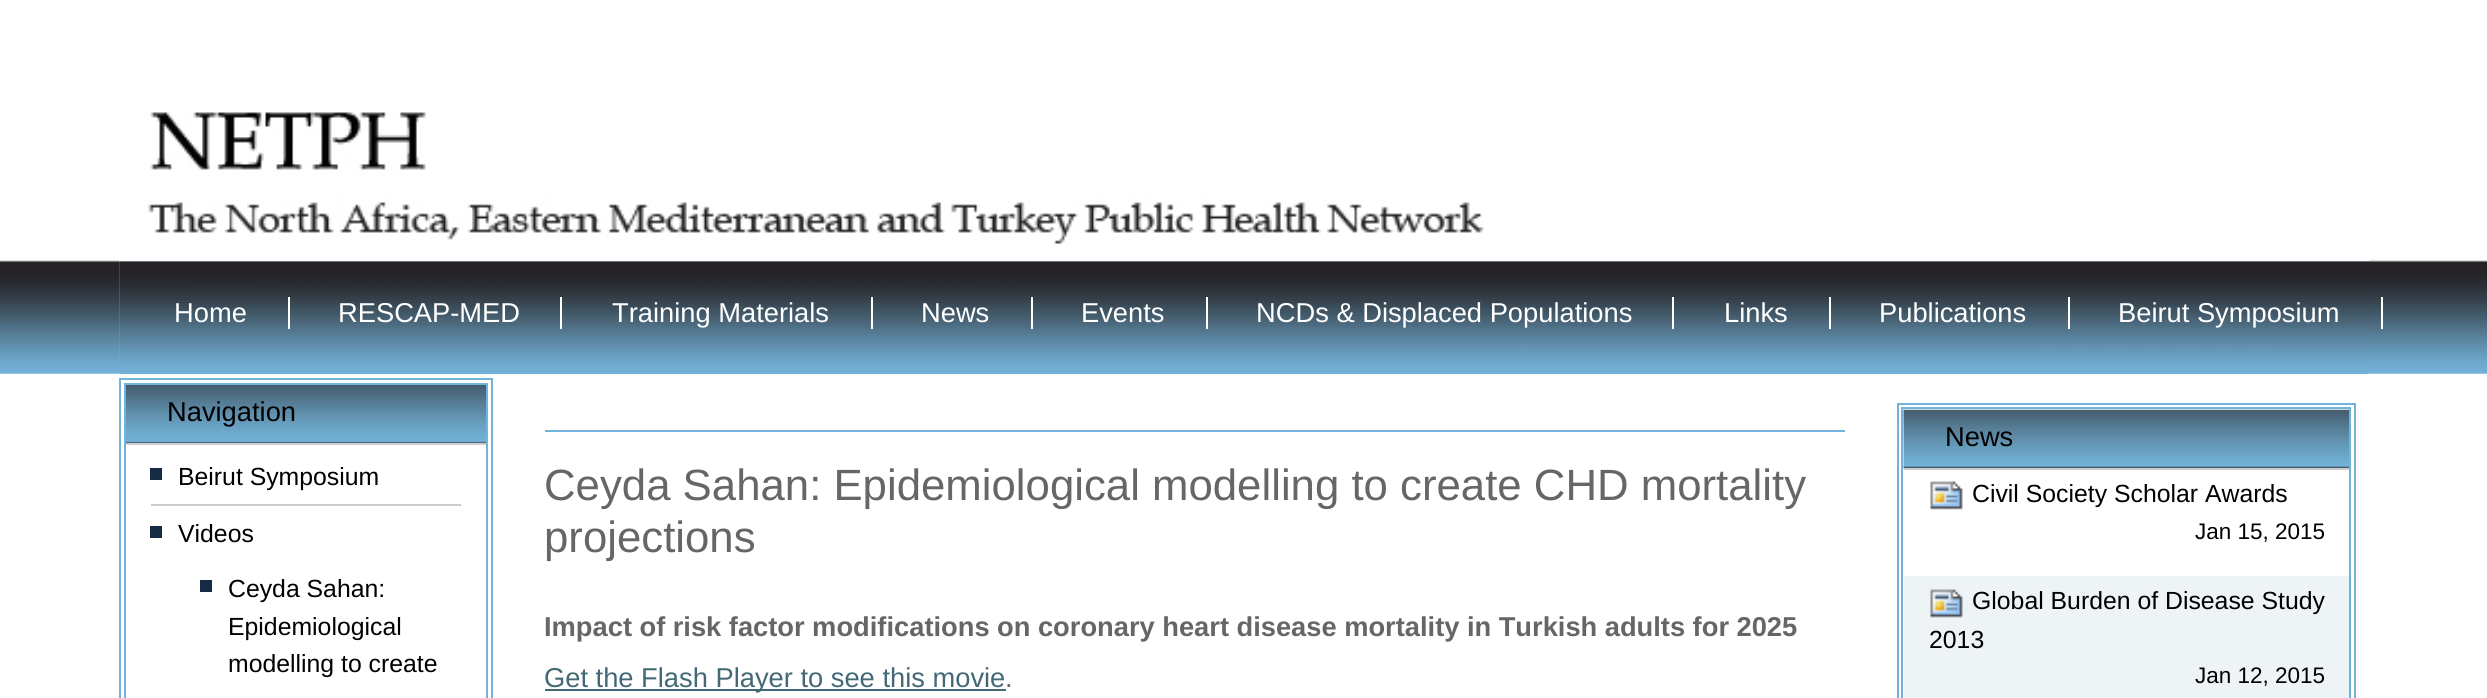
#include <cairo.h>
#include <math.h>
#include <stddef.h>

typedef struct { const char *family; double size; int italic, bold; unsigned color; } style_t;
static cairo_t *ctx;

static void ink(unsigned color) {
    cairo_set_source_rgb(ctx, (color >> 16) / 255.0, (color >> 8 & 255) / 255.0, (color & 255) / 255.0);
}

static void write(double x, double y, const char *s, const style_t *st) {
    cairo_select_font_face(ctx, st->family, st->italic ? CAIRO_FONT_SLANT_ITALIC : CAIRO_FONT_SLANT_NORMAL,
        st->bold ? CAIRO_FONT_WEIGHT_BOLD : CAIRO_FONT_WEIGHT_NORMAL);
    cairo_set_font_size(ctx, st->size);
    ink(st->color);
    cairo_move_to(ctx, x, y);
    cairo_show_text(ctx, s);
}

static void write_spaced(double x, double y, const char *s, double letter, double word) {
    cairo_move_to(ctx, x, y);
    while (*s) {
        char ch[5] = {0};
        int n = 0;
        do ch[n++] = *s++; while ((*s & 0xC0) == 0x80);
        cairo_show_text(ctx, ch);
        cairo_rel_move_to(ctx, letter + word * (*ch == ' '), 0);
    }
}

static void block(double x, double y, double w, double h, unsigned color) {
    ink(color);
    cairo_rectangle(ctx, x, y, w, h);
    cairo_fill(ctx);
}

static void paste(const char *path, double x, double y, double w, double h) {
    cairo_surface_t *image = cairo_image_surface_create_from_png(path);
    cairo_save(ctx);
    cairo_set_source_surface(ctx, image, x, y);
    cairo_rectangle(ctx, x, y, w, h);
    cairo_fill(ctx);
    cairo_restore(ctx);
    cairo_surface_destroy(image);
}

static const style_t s1 = {"Liberation Sans", 27.3, 0, 0, 0xffffff};
static const style_t s2 = {"Liberation Sans", 27.3, 0, 0, 0x000000};
static const style_t s3 = {"Liberation Sans", 24.8, 0, 0, 0x000000};
static const style_t s4 = {"Liberation Sans", 43.75, 0, 0, 0x666666};
static const style_t s5 = {"Liberation Sans", 27.3, 0, 0, 0x436976};
static const style_t s6 = {"Liberation Sans", 27.3, 0, 0, 0x666666};
static const style_t s7 = {"Liberation Sans", 22.5, 0, 0, 0x000000};

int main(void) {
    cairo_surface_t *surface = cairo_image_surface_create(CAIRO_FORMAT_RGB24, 2487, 698);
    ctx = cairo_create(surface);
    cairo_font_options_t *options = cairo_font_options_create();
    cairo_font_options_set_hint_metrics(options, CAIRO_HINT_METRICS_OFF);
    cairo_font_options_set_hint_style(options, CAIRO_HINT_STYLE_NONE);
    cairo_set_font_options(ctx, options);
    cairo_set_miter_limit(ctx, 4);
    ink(0xffffff);
    cairo_paint(ctx);
    paste("pic1.png", 0, 260, 2487, 114);
    block(119, 260, 2250, 114, 0xffffff);
    block(119, 261, 2250, 113, 0x73b3d9);
    paste("pic3.png", 119, 261, 2251, 113);
    paste("pic2.png", 119, 112, 2251, 150);
    write(174, 322, "Home", &s1);
    block(288, 297, 2, 32, 0xffffff);
    write(338, 322, "RESCAP-MED", &s1);
    block(560, 297, 2, 32, 0xffffff);
    write(612, 322, "Training Materials", &s1);
    block(871, 297, 2, 32, 0xffffff);
    write(921, 322, "News", &s1);
    block(1031, 297, 2, 32, 0xffffff);
    write(1081, 322, "Events", &s1);
    block(1206, 297, 2, 32, 0xffffff);
    write(1256, 322, "NCDs & Displaced Populations", &s1);
    block(1672, 297, 2, 32, 0xffffff);
    write(1724, 322, "Links", &s1);
    block(1829, 297, 2, 32, 0xffffff);
    write(1879, 322, "Publications", &s1);
    block(2068, 297, 2, 32, 0xffffff);
    write(2118, 322, "Beirut Symposium", &s1);
    block(2381, 297, 2, 32, 0xffffff);
    cairo_rectangle(ctx, 120, 379, 372, 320);
    ink(0x73b3d9);
    cairo_stroke(ctx);
    cairo_rectangle(ctx, 125, 384, 362, 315);
    cairo_stroke(ctx);
    paste("pic4.png", 126, 385, 360, 58);
    block(126, 443, 360, 2, 0xcccccc);
    write(167, 421, "Navigation", &s2);
    block(150, 468, 12, 12, 0x152a45);
    block(151, 504, 310, 2, 0xcccccc);
    write(178, 485, "Beirut Symposium", &s3);
    block(150, 526, 12, 12, 0x152a45);
    write(178, 542, "Videos", &s3);
    block(200, 580, 12, 12, 0x152a45);
    write(228, 597, "Ceyda Sahan:", &s3);
    write(228, 635, "Epidemiological", &s3);
    write(228, 672, "modelling to create", &s3);
    block(545, 430, 1300, 2, 0x73b3d9);
    write(544, 500, "Ceyda Sahan: Epidemiological modelling to create CHD mortality", &s4);
    write(544, 552, "projections", &s4);
    cairo_select_font_face(ctx, "Liberation Sans", CAIRO_FONT_SLANT_NORMAL, CAIRO_FONT_WEIGHT_BOLD);
    cairo_set_font_size(ctx, 27.3);
    write_spaced(544, 636, "Impact of risk factor modifications on coronary heart disease mortality in Turkish adults for 2025", 0, -0.1);
    block(545, 689, 461, 2, 0x436976);
    write(544, 687, "Get the Flash Player to see this movie", &s5);
    write(1005, 687, ".", &s6);
    cairo_rectangle(ctx, 1898, 404, 457, 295);
    ink(0x73b3d9);
    cairo_stroke(ctx);
    cairo_rectangle(ctx, 1902, 408, 448, 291);
    cairo_stroke(ctx);
    paste("pic5.png", 1903, 409, 446, 60);
    block(1904, 468, 445, 2, 0xcccccc);
    write(1945, 446, "News", &s2);
    paste("pic6.png", 1930, 481, 33, 29);
    write(1972, 502, "Civil Society Scholar Awards", &s3);
    write(2195, 539, "Jan 15, 2015", &s7);
    block(1904, 576, 445, 122, 0xeef3f5);
    paste("pic7.png", 1930, 589, 33, 29);
    write(1972, 609, "Global Burden of Disease Study", &s3);
    write(1929, 648, "2013", &s3);
    write(2195, 683, "Jan 12, 2015", &s7);
    cairo_surface_write_to_png(surface, "screenshot.png");
    cairo_font_options_destroy(options);
    cairo_destroy(ctx);
    cairo_surface_destroy(surface);
    return 0;
}
